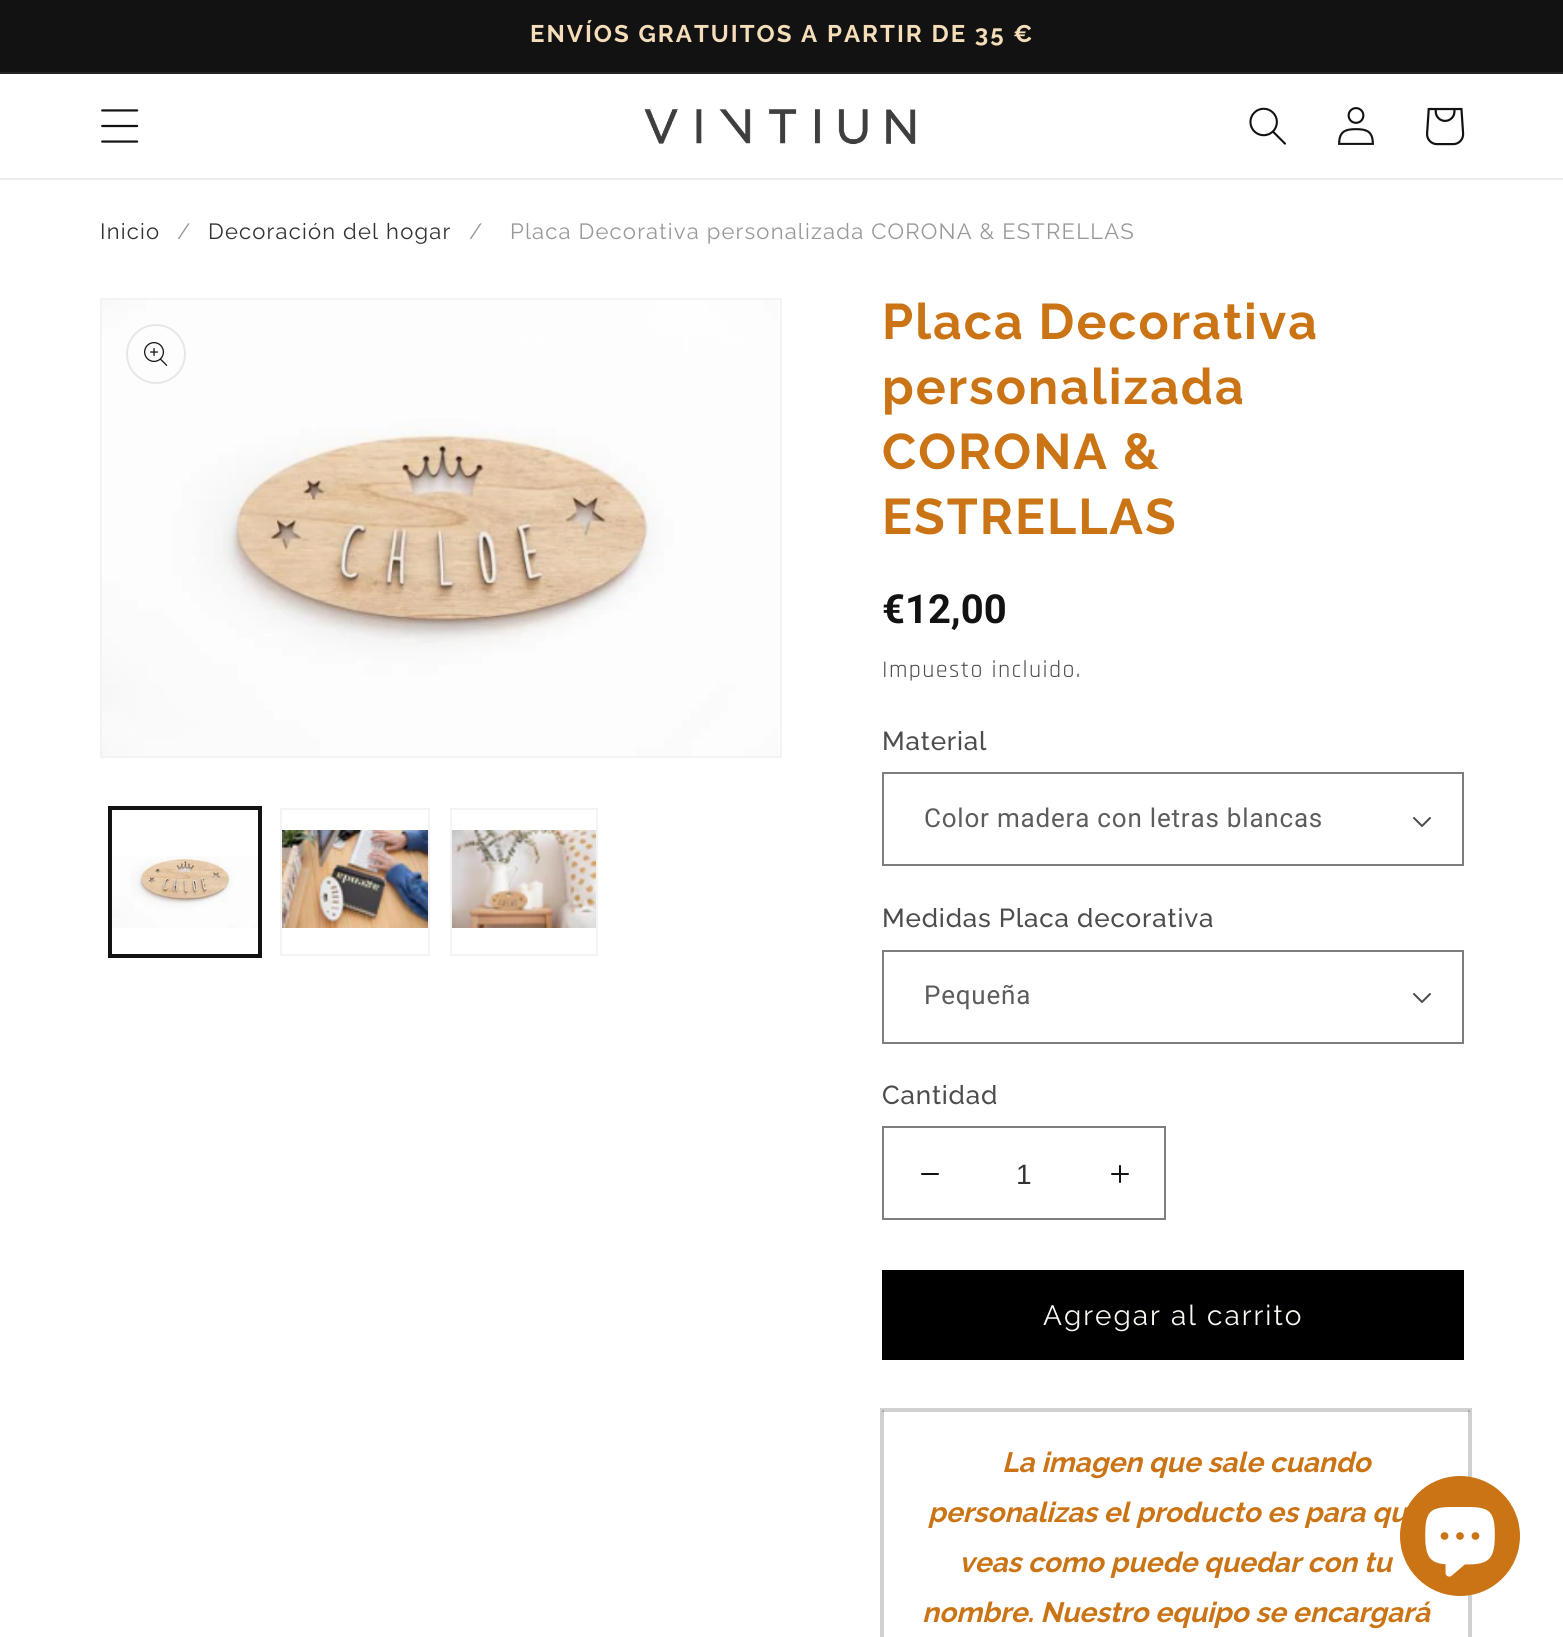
#include <cairo.h>
#include <math.h>
#include <stddef.h>

typedef struct { const char *family; double size; int italic, bold; unsigned color; } style_t;
static cairo_t *ctx;

static void ink(unsigned color) {
    cairo_set_source_rgb(ctx, (color >> 16) / 255.0, (color >> 8 & 255) / 255.0, (color & 255) / 255.0);
}

static void write(double x, double y, const char *s, const style_t *st) {
    cairo_select_font_face(ctx, st->family, st->italic ? CAIRO_FONT_SLANT_ITALIC : CAIRO_FONT_SLANT_NORMAL,
        st->bold ? CAIRO_FONT_WEIGHT_BOLD : CAIRO_FONT_WEIGHT_NORMAL);
    cairo_set_font_size(ctx, st->size);
    ink(st->color);
    cairo_move_to(ctx, x, y);
    cairo_show_text(ctx, s);
}

static void write_spaced(double x, double y, const char *s, double letter, double word) {
    cairo_move_to(ctx, x, y);
    while (*s) {
        char ch[5] = {0};
        int n = 0;
        do ch[n++] = *s++; while ((*s & 0xC0) == 0x80);
        cairo_show_text(ctx, ch);
        cairo_rel_move_to(ctx, letter + word * (*ch == ' '), 0);
    }
}

static void block(double x, double y, double w, double h, unsigned color) {
    ink(color);
    cairo_rectangle(ctx, x, y, w, h);
    cairo_fill(ctx);
}

static void paste(const char *path, double x, double y, double w, double h) {
    cairo_surface_t *image = cairo_image_surface_create_from_png(path);
    cairo_save(ctx);
    cairo_set_source_surface(ctx, image, x, y);
    cairo_rectangle(ctx, x, y, w, h);
    cairo_fill(ctx);
    cairo_restore(ctx);
    cairo_surface_destroy(image);
}

static const style_t s1 = {"Roboto", 40, 0, 1, 0x121212};
static const style_t s2 = {"Liberation Sans", 28, 0, 0, 0x333333};
static const style_t s3 = {"Raleway", 28, 1, 1, 0xcb7415};

int main(void) {
    cairo_surface_t *surface = cairo_image_surface_create(CAIRO_FORMAT_RGB24, 1563, 1637);
    ctx = cairo_create(surface);
    cairo_font_options_t *options = cairo_font_options_create();
    cairo_font_options_set_hint_metrics(options, CAIRO_HINT_METRICS_OFF);
    cairo_font_options_set_hint_style(options, CAIRO_HINT_STYLE_NONE);
    cairo_set_font_options(ctx, options);
    cairo_set_miter_limit(ctx, 4);
    ink(0xffffff);
    cairo_paint(ctx);
    block(882, 1410, 2, 227, 0xd0d0d0);
    block(1468, 1410, 2, 227, 0xd0d0d0);
    block(0, 0, 1563, 72, 0x121212);
    block(0, 72, 1563, 2, 0x252525);
    cairo_select_font_face(ctx, "Raleway", CAIRO_FONT_SLANT_NORMAL, CAIRO_FONT_WEIGHT_BOLD);
    cairo_set_font_size(ctx, 24);
    ink(0xf4ddb8);
    write_spaced(530, 42, "ENVÍOS GRATUITOS A PARTIR DE 35 €", 2, 0);
    block(0, 178, 1563, 2, 0xececec);
    paste("pic1.png", 101, 109, 38, 34);
    paste("pic2.png", 644, 109, 272, 36);
    paste("pic3.png", 1249, 107, 37, 38);
    paste("pic4.png", 1338, 107, 36, 38);
    paste("pic5.png", 1426, 107, 39, 39);
    cairo_select_font_face(ctx, "Raleway", CAIRO_FONT_SLANT_NORMAL, CAIRO_FONT_WEIGHT_NORMAL);
    cairo_set_font_size(ctx, 22);
    ink(0x333333);
    write_spaced(100, 239, "Inicio", 1.2, 0);
    ink(0x999999);
    write_spaced(177, 239, "/", 1.2, 0);
    ink(0x333333);
    write_spaced(208, 239, "Decoración del hogar", 1.2, 0);
    ink(0x999999);
    write_spaced(469, 239, "/", 1.2, 0);
    write_spaced(510, 239, "Placa Decorativa personalizada CORONA & ESTRELLAS", 1.2, 0);
    cairo_rectangle(ctx, 101, 299, 680, 458);
    ink(0xf3f3f3);
    cairo_stroke(ctx);
    paste("pic6.png", 102, 300, 677, 456);
    cairo_arc(ctx, 156, 354, 29, 0, 2 * M_PI);
    ink(0xe7e7e7);
    cairo_stroke(ctx);
    paste("pic7.png", 144, 342, 24, 24);
    cairo_rectangle(ctx, 109, 807, 152, 150);
    ink(0x121212);
    cairo_stroke(ctx);
    cairo_rectangle(ctx, 111, 809, 148, 146);
    cairo_stroke(ctx);
    paste("pic8.png", 112, 856, 146, 72);
    cairo_rectangle(ctx, 281, 809, 148, 146);
    ink(0xf3f3f3);
    cairo_stroke(ctx);
    paste("pic9.png", 282, 830, 146, 98);
    cairo_rectangle(ctx, 451, 809, 146, 146);
    cairo_stroke(ctx);
    paste("pic10.png", 452, 830, 144, 98);
    cairo_select_font_face(ctx, "Raleway", CAIRO_FONT_SLANT_NORMAL, CAIRO_FONT_WEIGHT_BOLD);
    cairo_set_font_size(ctx, 50);
    ink(0xcb7415);
    write_spaced(882, 339, "Placa Decorativa", 2, 0);
    write_spaced(882, 404, "personalizada", 2, 0);
    write_spaced(882, 469, "CORONA &", 2, 0);
    write_spaced(882, 534, "ESTRELLAS", 2, 0);
    write(882, 623, "€12,00", &s1);
    cairo_select_font_face(ctx, "Rajdhani", CAIRO_FONT_SLANT_NORMAL, CAIRO_FONT_WEIGHT_NORMAL);
    cairo_set_font_size(ctx, 24);
    ink(0x4d4d4d);
    write_spaced(882, 677, "Impuesto incluido.", 1.4, 0);
    cairo_select_font_face(ctx, "Raleway Medium", CAIRO_FONT_SLANT_NORMAL, CAIRO_FONT_WEIGHT_NORMAL);
    cairo_set_font_size(ctx, 26);
    write_spaced(882, 750, "Material", 0.8, 0);
    paste("pic11.png", 1413, 817, 18, 10);
    cairo_rectangle(ctx, 883, 773, 580, 92);
    ink(0x7d7d7d);
    cairo_stroke(ctx);
    cairo_select_font_face(ctx, "Roboto", CAIRO_FONT_SLANT_NORMAL, CAIRO_FONT_WEIGHT_NORMAL);
    ink(0x5c5c5c);
    write_spaced(924, 827, "Color madera con letras blancas", 0.8, 0);
    cairo_select_font_face(ctx, "Raleway Medium", CAIRO_FONT_SLANT_NORMAL, CAIRO_FONT_WEIGHT_NORMAL);
    ink(0x4d4d4d);
    write_spaced(882, 927, "Medidas Placa decorativa", 0.8, 0);
    paste("pic11.png", 1413, 993, 18, 10);
    cairo_rectangle(ctx, 883, 951, 580, 92);
    ink(0x7d7d7d);
    cairo_stroke(ctx);
    cairo_select_font_face(ctx, "Roboto", CAIRO_FONT_SLANT_NORMAL, CAIRO_FONT_WEIGHT_NORMAL);
    ink(0x5c5c5c);
    write_spaced(924, 1004, "Pequeña", 0.8, 0);
    cairo_select_font_face(ctx, "Raleway Medium", CAIRO_FONT_SLANT_NORMAL, CAIRO_FONT_WEIGHT_NORMAL);
    ink(0x4d4d4d);
    write_spaced(882, 1104, "Cantidad", 0.8, 0);
    paste("pic12.png", 921, 1173, 18, 2);
    paste("pic13.png", 1111, 1165, 18, 18);
    cairo_rectangle(ctx, 883, 1127, 282, 92);
    ink(0x7d7d7d);
    cairo_stroke(ctx);
    write(1016, 1184, "1", &s2);
    block(882, 1270, 582, 90, 0x000000);
    cairo_select_font_face(ctx, "Raleway", CAIRO_FONT_SLANT_NORMAL, CAIRO_FONT_WEIGHT_NORMAL);
    ink(0xfaf7f2);
    write_spaced(1043, 1325, "Agregar al carrito", 2, 0);
    cairo_rectangle(ctx, 881, 1409, 590, 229);
    ink(0xd0d0d0);
    cairo_stroke(ctx);
    block(882, 1410, 588, 2, 0xd0d0d0);
    block(882, 1410, 2, 2, 0xaaaaaa);
    block(1468, 1410, 2, 2, 0xaaaaaa);
    write(1002, 1472, "La imagen que sale cuando", &s3);
    write(928, 1522, "personalizas el producto es para qu", &s3);
    write(959, 1572, "veas como puede quedar con tu", &s3);
    write(922, 1622, "nombre. Nuestro equipo se encargará", &s3);
    cairo_new_path(ctx);
    cairo_arc(ctx, 1460, 1536, 60, 0, 2 * M_PI);
    cairo_fill(ctx);
    paste("pic14.png", 1425, 1507, 70, 70);
    cairo_surface_write_to_png(surface, "screenshot.png");
    cairo_font_options_destroy(options);
    cairo_destroy(ctx);
    cairo_surface_destroy(surface);
    return 0;
}
